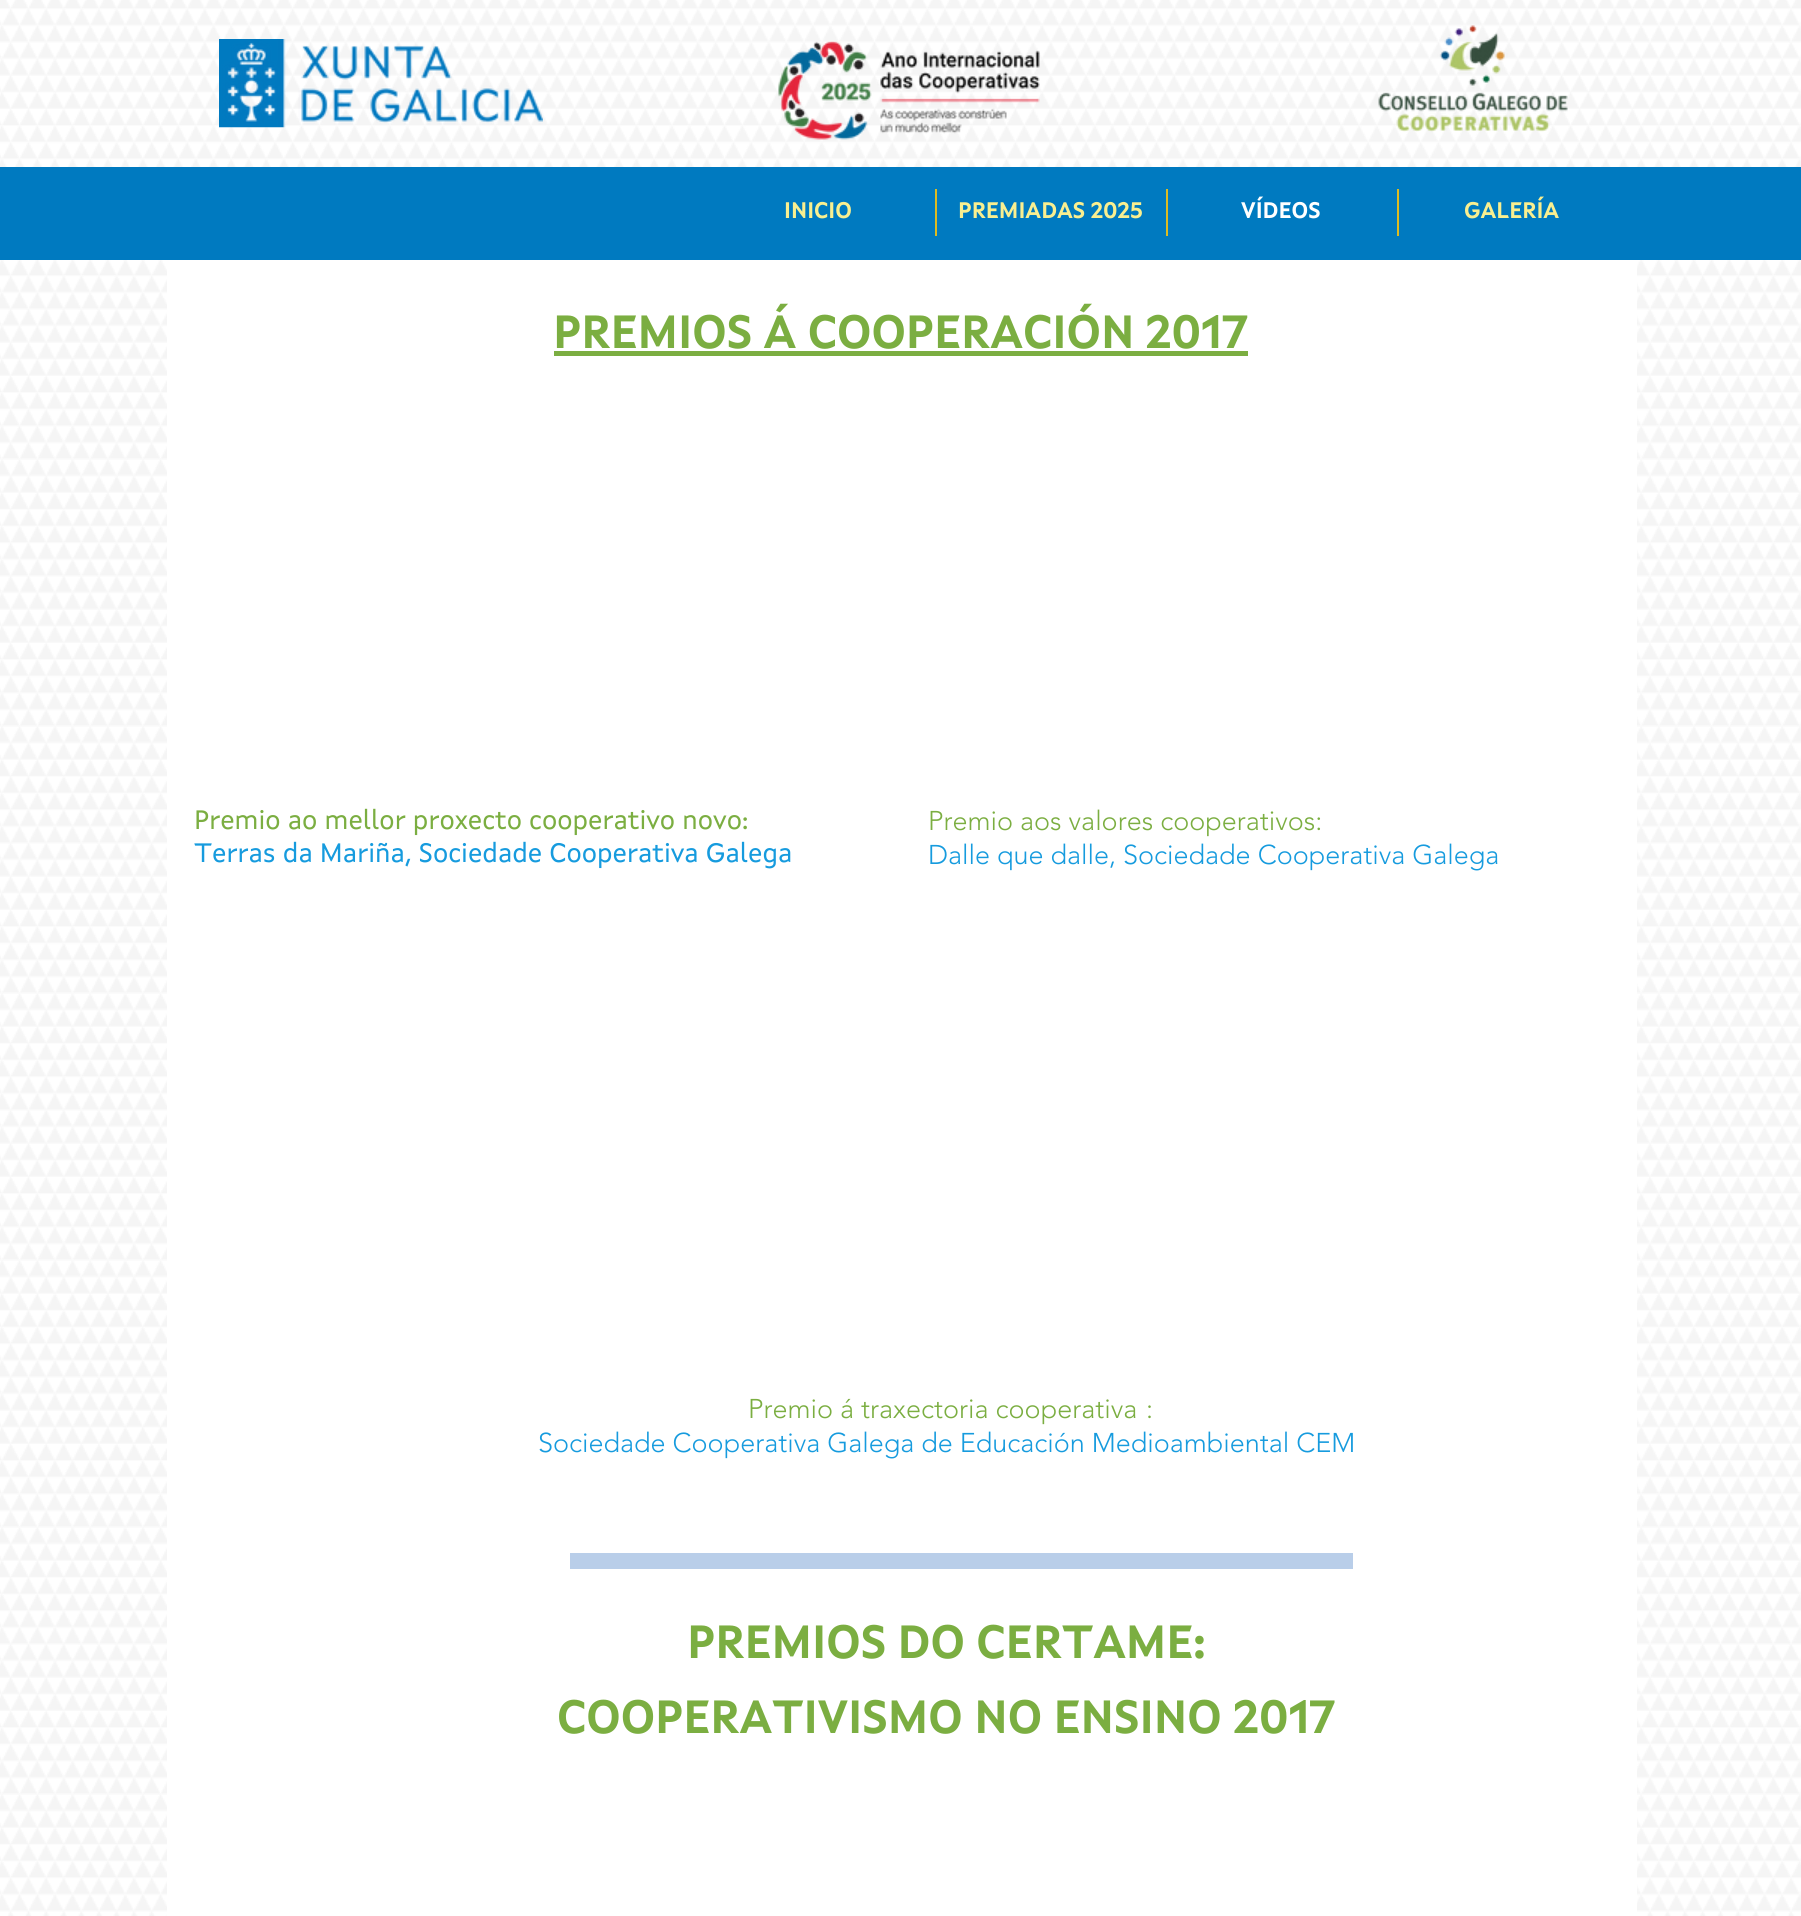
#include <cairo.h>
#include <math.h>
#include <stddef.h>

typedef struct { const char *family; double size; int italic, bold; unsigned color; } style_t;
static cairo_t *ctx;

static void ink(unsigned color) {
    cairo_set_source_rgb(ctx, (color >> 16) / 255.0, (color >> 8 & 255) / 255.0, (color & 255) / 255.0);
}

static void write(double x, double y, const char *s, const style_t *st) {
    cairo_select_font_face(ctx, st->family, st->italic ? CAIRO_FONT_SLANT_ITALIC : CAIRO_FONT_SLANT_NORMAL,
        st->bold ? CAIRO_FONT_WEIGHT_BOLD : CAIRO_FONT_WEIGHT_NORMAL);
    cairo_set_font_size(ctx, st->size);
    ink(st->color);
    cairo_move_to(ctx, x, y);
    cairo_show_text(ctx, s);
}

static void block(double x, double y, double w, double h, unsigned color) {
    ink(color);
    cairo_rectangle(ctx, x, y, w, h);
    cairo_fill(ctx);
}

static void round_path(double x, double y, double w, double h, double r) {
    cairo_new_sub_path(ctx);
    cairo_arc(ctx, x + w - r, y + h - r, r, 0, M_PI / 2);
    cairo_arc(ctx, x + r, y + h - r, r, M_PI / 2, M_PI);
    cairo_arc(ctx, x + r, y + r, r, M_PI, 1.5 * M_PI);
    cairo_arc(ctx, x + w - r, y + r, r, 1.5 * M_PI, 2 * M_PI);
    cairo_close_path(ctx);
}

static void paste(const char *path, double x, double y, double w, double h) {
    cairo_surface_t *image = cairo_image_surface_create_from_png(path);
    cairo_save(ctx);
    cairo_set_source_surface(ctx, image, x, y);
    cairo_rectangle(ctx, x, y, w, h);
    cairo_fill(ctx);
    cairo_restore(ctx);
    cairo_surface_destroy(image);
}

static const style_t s1 = {"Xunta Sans", 22.5, 0, 1, 0xf9ef90};
static const style_t s2 = {"Xunta Sans", 22.5, 0, 1, 0xffffff};
static const style_t s3 = {"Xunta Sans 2", 46.5, 0, 1, 0x7bae41};
static const style_t s4 = {"Xunta Sans", 27, 0, 0, 0x7bae41};
static const style_t s5 = {"Xunta Sans", 27, 0, 0, 0x169bde};
static const style_t s6 = {"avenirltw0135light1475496 Light", 27, 0, 0, 0x7bae41};
static const style_t s7 = {"avenirltw0135light1475496 Light", 27, 0, 0, 0x169bde};

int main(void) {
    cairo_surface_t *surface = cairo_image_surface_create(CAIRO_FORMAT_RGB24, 1801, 1916);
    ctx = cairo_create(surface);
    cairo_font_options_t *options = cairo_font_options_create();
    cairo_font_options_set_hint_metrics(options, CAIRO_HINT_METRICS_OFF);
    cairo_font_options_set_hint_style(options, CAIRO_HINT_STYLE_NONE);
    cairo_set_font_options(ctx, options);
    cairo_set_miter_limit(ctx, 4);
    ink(0xffffff);
    cairo_paint(ctx);
    paste("pic1.png", 0, 0, 1801, 1916);
    paste("pic2.png", 219, 39, 324, 89);
    paste("pic3.png", 778, 41, 262, 99);
    paste("pic4.png", 1378, 25, 190, 107);
    block(0, 167, 1801, 93, 0x007ac0);
    write(784, 218, "INICIO", &s1);
    block(935, 189, 2, 47, 0xddbb20);
    write(958, 218, "PREMIADAS 2025", &s1);
    block(1166, 189, 2, 47, 0xddbb20);
    write(1241, 218, "VÍDEOS", &s2);
    block(1397, 189, 2, 47, 0xddbb20);
    write(1464, 218, "GALERÍA", &s1);
    ink(0xffffff);
    round_path(167, 260, 1470, 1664, 8);
    cairo_fill(ctx);
    write(553, 348, "PREMIOS Á COOPERACIÓN 2017", &s3);
    block(554, 351, 694, 5, 0x7bae41);
    write(194, 829, "Premio ao mellor proxecto cooperativo novo:", &s4);
    write(194, 862, "Terras da Mariña, Sociedade Cooperativa Galega", &s5);
    write(928, 830, "Premio aos valores cooperativos:", &s6);
    write(928, 864, "Dalle que dalle, Sociedade Cooperativa Galega", &s7);
    write(748, 1418, "Premio á traxectoria cooperativa", &s6);
    write(1146, 1418, ":", &s6);
    write(538, 1452, "Sociedade Cooperativa Galega de Educación Medioambiental CEM", &s7);
    block(570, 1553, 783, 16, 0xb9cee9);
    write(687, 1658, "PREMIOS DO CERTAME:", &s3);
    write(557, 1733, "COOPERATIVISMO NO ENSINO 2017", &s3);
    cairo_surface_write_to_png(surface, "screenshot.png");
    cairo_font_options_destroy(options);
    cairo_destroy(ctx);
    cairo_surface_destroy(surface);
    return 0;
}
